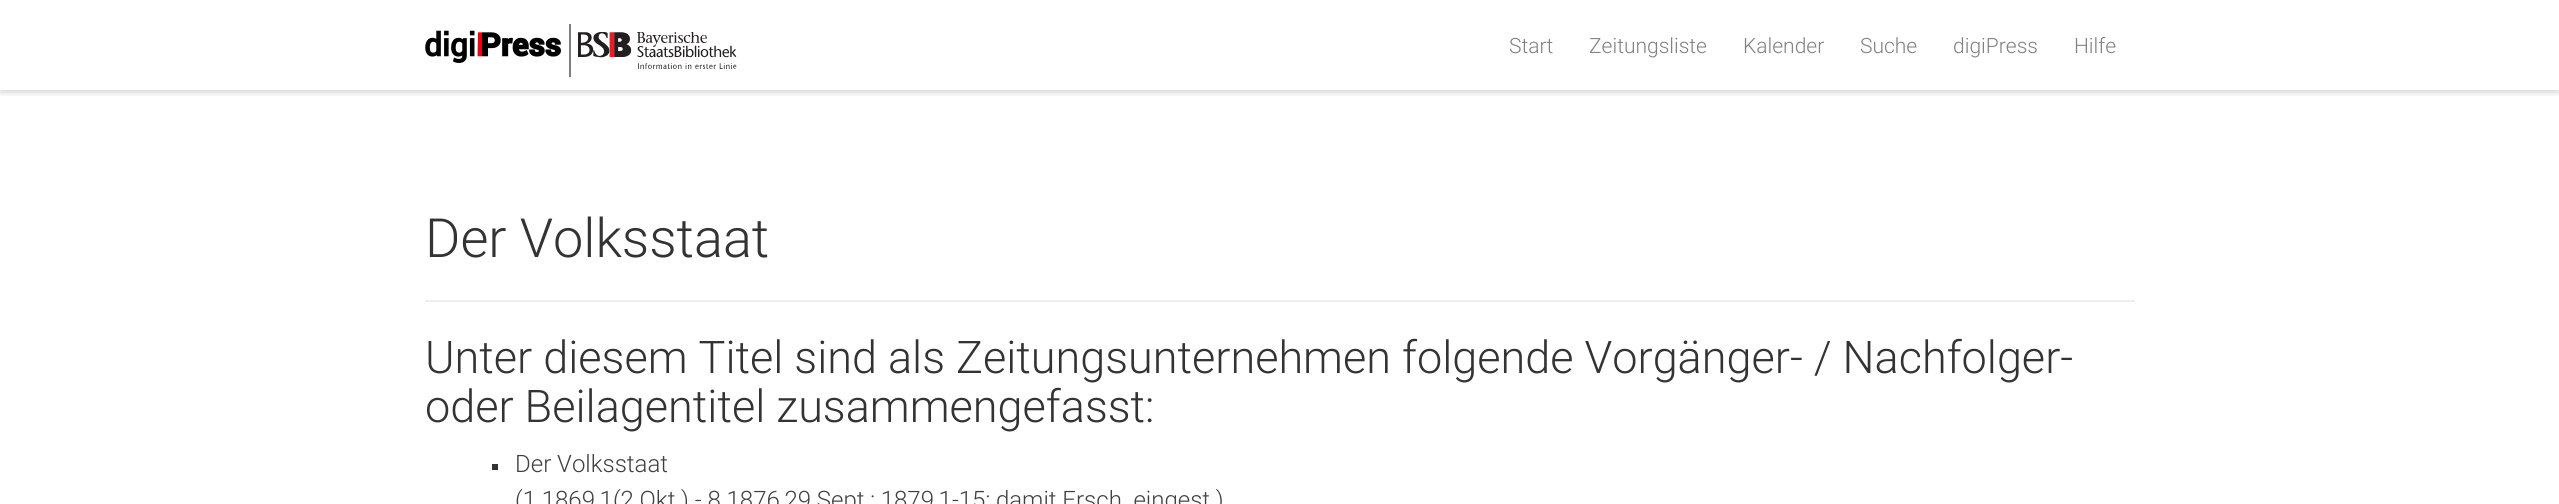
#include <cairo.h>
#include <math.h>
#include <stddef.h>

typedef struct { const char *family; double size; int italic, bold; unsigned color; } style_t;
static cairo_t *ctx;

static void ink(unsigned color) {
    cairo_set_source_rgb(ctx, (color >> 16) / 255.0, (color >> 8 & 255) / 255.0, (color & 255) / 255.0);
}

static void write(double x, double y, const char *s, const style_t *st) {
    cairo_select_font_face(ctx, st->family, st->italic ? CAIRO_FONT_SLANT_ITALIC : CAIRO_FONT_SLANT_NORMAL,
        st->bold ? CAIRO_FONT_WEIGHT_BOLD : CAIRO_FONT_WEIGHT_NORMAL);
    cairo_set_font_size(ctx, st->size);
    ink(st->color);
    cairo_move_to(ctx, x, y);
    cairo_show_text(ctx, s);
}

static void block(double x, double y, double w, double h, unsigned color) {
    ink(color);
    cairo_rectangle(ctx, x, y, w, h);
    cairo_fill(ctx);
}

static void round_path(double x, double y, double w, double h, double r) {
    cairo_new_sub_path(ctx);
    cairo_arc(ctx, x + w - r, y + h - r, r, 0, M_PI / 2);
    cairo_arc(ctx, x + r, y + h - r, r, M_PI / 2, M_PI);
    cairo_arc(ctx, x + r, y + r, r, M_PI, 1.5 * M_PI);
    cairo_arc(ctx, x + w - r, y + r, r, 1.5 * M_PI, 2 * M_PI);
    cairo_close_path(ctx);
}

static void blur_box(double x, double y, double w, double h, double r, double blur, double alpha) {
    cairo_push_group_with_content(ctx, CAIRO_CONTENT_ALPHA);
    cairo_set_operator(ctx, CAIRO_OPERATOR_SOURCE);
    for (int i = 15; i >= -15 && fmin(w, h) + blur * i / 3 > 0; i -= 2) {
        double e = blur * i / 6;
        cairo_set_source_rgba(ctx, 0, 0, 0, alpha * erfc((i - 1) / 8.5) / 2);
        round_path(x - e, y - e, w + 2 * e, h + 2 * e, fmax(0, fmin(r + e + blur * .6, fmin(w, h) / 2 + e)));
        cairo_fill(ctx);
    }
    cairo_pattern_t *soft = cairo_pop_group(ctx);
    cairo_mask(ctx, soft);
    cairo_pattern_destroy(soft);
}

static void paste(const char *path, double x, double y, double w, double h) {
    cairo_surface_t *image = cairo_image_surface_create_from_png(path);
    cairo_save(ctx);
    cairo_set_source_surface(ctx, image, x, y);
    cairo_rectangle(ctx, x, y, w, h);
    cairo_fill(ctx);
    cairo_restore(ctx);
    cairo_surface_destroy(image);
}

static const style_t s1 = {"Roboto Light", 21, 0, 0, 0x808080};
static const style_t s2 = {"Roboto Light", 54, 0, 0, 0x333333};
static const style_t s3 = {"Roboto Light", 45, 0, 0, 0x333333};
static const style_t s4 = {"Roboto Light", 24, 0, 0, 0x404040};

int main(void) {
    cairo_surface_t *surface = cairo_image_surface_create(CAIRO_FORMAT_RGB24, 2559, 504);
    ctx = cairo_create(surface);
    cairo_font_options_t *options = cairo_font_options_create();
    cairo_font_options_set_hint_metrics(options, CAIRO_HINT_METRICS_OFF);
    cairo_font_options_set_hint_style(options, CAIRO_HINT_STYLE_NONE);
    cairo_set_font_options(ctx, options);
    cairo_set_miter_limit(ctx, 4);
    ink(0xffffff);
    cairo_paint(ctx);
    cairo_save(ctx);
    cairo_rectangle(ctx, 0, 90, 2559, 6);
    cairo_clip(ctx);
    ink(0x000000);
    blur_box(0, 3, 2559, 90, 0, 3, 0.15);
    cairo_restore(ctx);
    paste("pic1.png", 425, 30, 136, 33);
    block(569, 24, 2, 53, 0x808080);
    paste("pic2.png", 578, 32, 159, 37);
    write(1509, 53, "Start", &s1);
    write(1589, 53, "Zeitungsliste", &s1);
    write(1743, 53, "Kalender", &s1);
    write(1860, 53, "Suche", &s1);
    write(1953, 53, "digiPress", &s1);
    write(2074, 53, "Hilfe", &s1);
    write(425, 257, "Der Volksstaat", &s2);
    block(425, 300, 1710, 2, 0xeeeeee);
    write(425, 373, "Unter diesem Titel sind als Zeitungsunternehmen folgende Vorgänger- / Nachfolger-", &s3);
    write(425, 422, "oder Beilagentitel zusammengefasst:", &s3);
    block(492, 464, 6, 6, 0x333333);
    write(515, 472, "Der Volksstaat", &s4);
    write(515, 508, "(1.1869,1(2.Okt.) - 8.1876,29.Sept.; 1879,1-15; damit Ersch. eingest.)", &s4);
    cairo_surface_write_to_png(surface, "screenshot.png");
    cairo_font_options_destroy(options);
    cairo_destroy(ctx);
    cairo_surface_destroy(surface);
    return 0;
}
